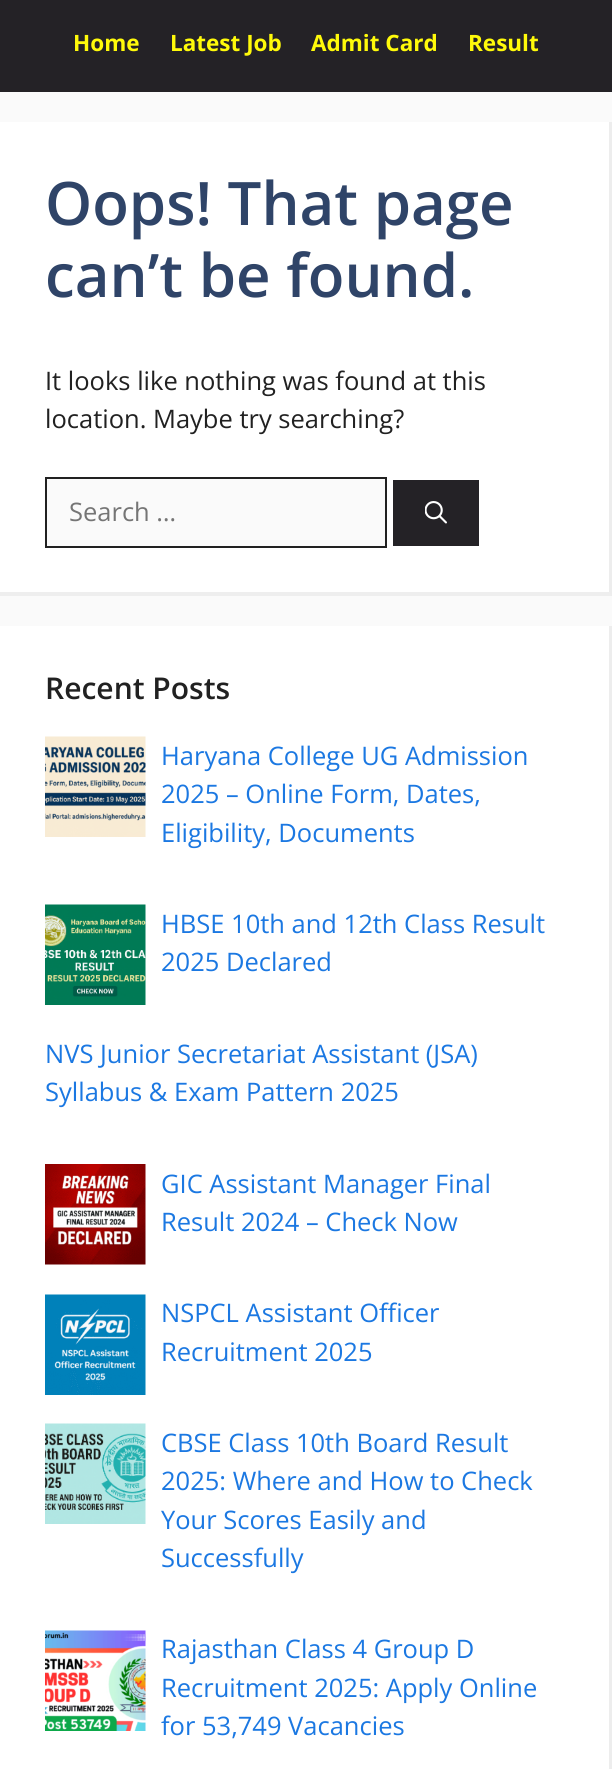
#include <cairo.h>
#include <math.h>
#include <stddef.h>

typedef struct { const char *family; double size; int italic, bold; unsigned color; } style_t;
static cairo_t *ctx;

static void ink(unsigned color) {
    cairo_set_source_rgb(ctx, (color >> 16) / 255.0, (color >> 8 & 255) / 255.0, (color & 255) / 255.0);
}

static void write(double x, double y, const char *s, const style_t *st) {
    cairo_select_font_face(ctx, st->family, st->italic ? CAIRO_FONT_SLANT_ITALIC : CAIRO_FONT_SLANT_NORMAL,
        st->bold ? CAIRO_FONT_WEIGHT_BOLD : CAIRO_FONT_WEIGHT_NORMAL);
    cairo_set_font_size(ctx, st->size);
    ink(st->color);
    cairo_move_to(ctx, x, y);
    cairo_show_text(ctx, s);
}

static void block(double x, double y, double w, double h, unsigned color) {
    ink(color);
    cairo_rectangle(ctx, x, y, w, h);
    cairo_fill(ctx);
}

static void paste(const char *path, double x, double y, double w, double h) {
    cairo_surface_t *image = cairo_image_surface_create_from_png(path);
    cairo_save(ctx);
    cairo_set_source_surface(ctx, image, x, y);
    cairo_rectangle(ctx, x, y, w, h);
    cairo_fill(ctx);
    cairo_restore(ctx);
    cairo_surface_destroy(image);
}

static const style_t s1 = {"Open Sans", 22.5, 0, 1, 0xfffa0a};
static const style_t s2 = {"Open Sans SemiBold", 60, 0, 0, 0x2f4468};
static const style_t s3 = {"Open Sans", 25.5, 0, 0, 0x212121};
static const style_t s4 = {"Open Sans", 25.5, 0, 0, 0x757575};
static const style_t s5 = {"Open Sans SemiBold", 30, 0, 0, 0x212121};
static const style_t s6 = {"Open Sans", 25.5, 0, 0, 0x1b78e2};

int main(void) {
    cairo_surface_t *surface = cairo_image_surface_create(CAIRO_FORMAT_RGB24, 612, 1769);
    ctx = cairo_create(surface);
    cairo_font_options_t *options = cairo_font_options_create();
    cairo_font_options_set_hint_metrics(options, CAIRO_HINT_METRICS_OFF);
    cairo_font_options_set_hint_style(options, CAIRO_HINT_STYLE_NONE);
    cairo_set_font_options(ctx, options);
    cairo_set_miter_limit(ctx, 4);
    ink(0xfafafa);
    cairo_paint(ctx);
    block(0, 0, 612, 92, 0x242226);
    write(73, 51, "Home", &s1);
    write(170, 51, "Latest Job", &s1);
    write(311, 51, "Admit Card", &s1);
    write(468, 51, "Result", &s1);
    block(0, 122, 612, 474, 0xffffff);
    ink(0xededed);
    cairo_new_path(ctx);
    cairo_move_to(ctx, 612, 122);
    cairo_line_to(ctx, 612, 596);
    cairo_line_to(ctx, 609, 592);
    cairo_line_to(ctx, 609, 122);
    cairo_close_path(ctx);
    cairo_fill(ctx);
    cairo_set_source_rgba(ctx, 0, 0, 0, 0.07);
    cairo_new_path(ctx);
    cairo_move_to(ctx, 612, 596);
    cairo_line_to(ctx, 0, 596);
    cairo_line_to(ctx, 0, 592);
    cairo_line_to(ctx, 609, 592);
    cairo_close_path(ctx);
    cairo_fill(ctx);
    write(45, 225, "Oops! That page", &s2);
    write(45, 297, "can’t be found.", &s2);
    write(45, 390, "It looks like nothing was found at this", &s3);
    write(45, 428, "location. Maybe try searching?", &s3);
    ink(0xfafafa);
    cairo_rectangle(ctx, 46, 478, 340, 69);
    cairo_fill_preserve(ctx);
    ink(0x212121);
    cairo_stroke(ctx);
    write(69, 521, "Search …", &s4);
    block(393, 480, 86, 66, 0x242226);
    paste("pic1.png", 425, 501, 22, 23);
    block(0, 626, 609, 1143, 0xffffff);
    ink(0xededed);
    cairo_new_path(ctx);
    cairo_move_to(ctx, 612, 626);
    cairo_line_to(ctx, 612, 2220);
    cairo_line_to(ctx, 609, 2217);
    cairo_line_to(ctx, 609, 626);
    cairo_close_path(ctx);
    cairo_fill(ctx);
    write(45, 699, "Recent Posts", &s5);
    paste("pic2.png", 45, 736, 101, 101);
    write(161, 765, "Haryana College UG Admission", &s6);
    write(161, 803, "2025 – Online Form, Dates,", &s6);
    write(161, 842, "Eligibility, Documents", &s6);
    paste("pic3.png", 45, 904, 101, 101);
    write(161, 933, "HBSE 10th and 12th Class Result", &s6);
    write(161, 971, "2025 Declared", &s6);
    write(45, 1063, "NVS Junior Secretariat Assistant (JSA)", &s6);
    write(45, 1101, "Syllabus & Exam Pattern 2025", &s6);
    paste("pic4.png", 45, 1164, 101, 101);
    write(161, 1193, "GIC Assistant Manager Final", &s6);
    write(161, 1231, "Result 2024 – Check Now", &s6);
    paste("pic5.png", 45, 1294, 101, 101);
    write(161, 1322, "NSPCL Assistant Officer", &s6);
    write(161, 1361, "Recruitment 2025", &s6);
    paste("pic6.png", 45, 1423, 101, 101);
    write(161, 1452, "CBSE Class 10th Board Result", &s6);
    write(161, 1490, "2025: Where and How to Check", &s6);
    write(161, 1529, "Your Scores Easily and", &s6);
    write(161, 1567, "Successfully", &s6);
    paste("pic7.png", 45, 1630, 101, 101);
    write(161, 1658, "Rajasthan Class 4 Group D", &s6);
    write(161, 1697, "Recruitment 2025: Apply Online", &s6);
    write(161, 1735, "for 53,749 Vacancies", &s6);
    cairo_surface_write_to_png(surface, "screenshot.png");
    cairo_font_options_destroy(options);
    cairo_destroy(ctx);
    cairo_surface_destroy(surface);
    return 0;
}
